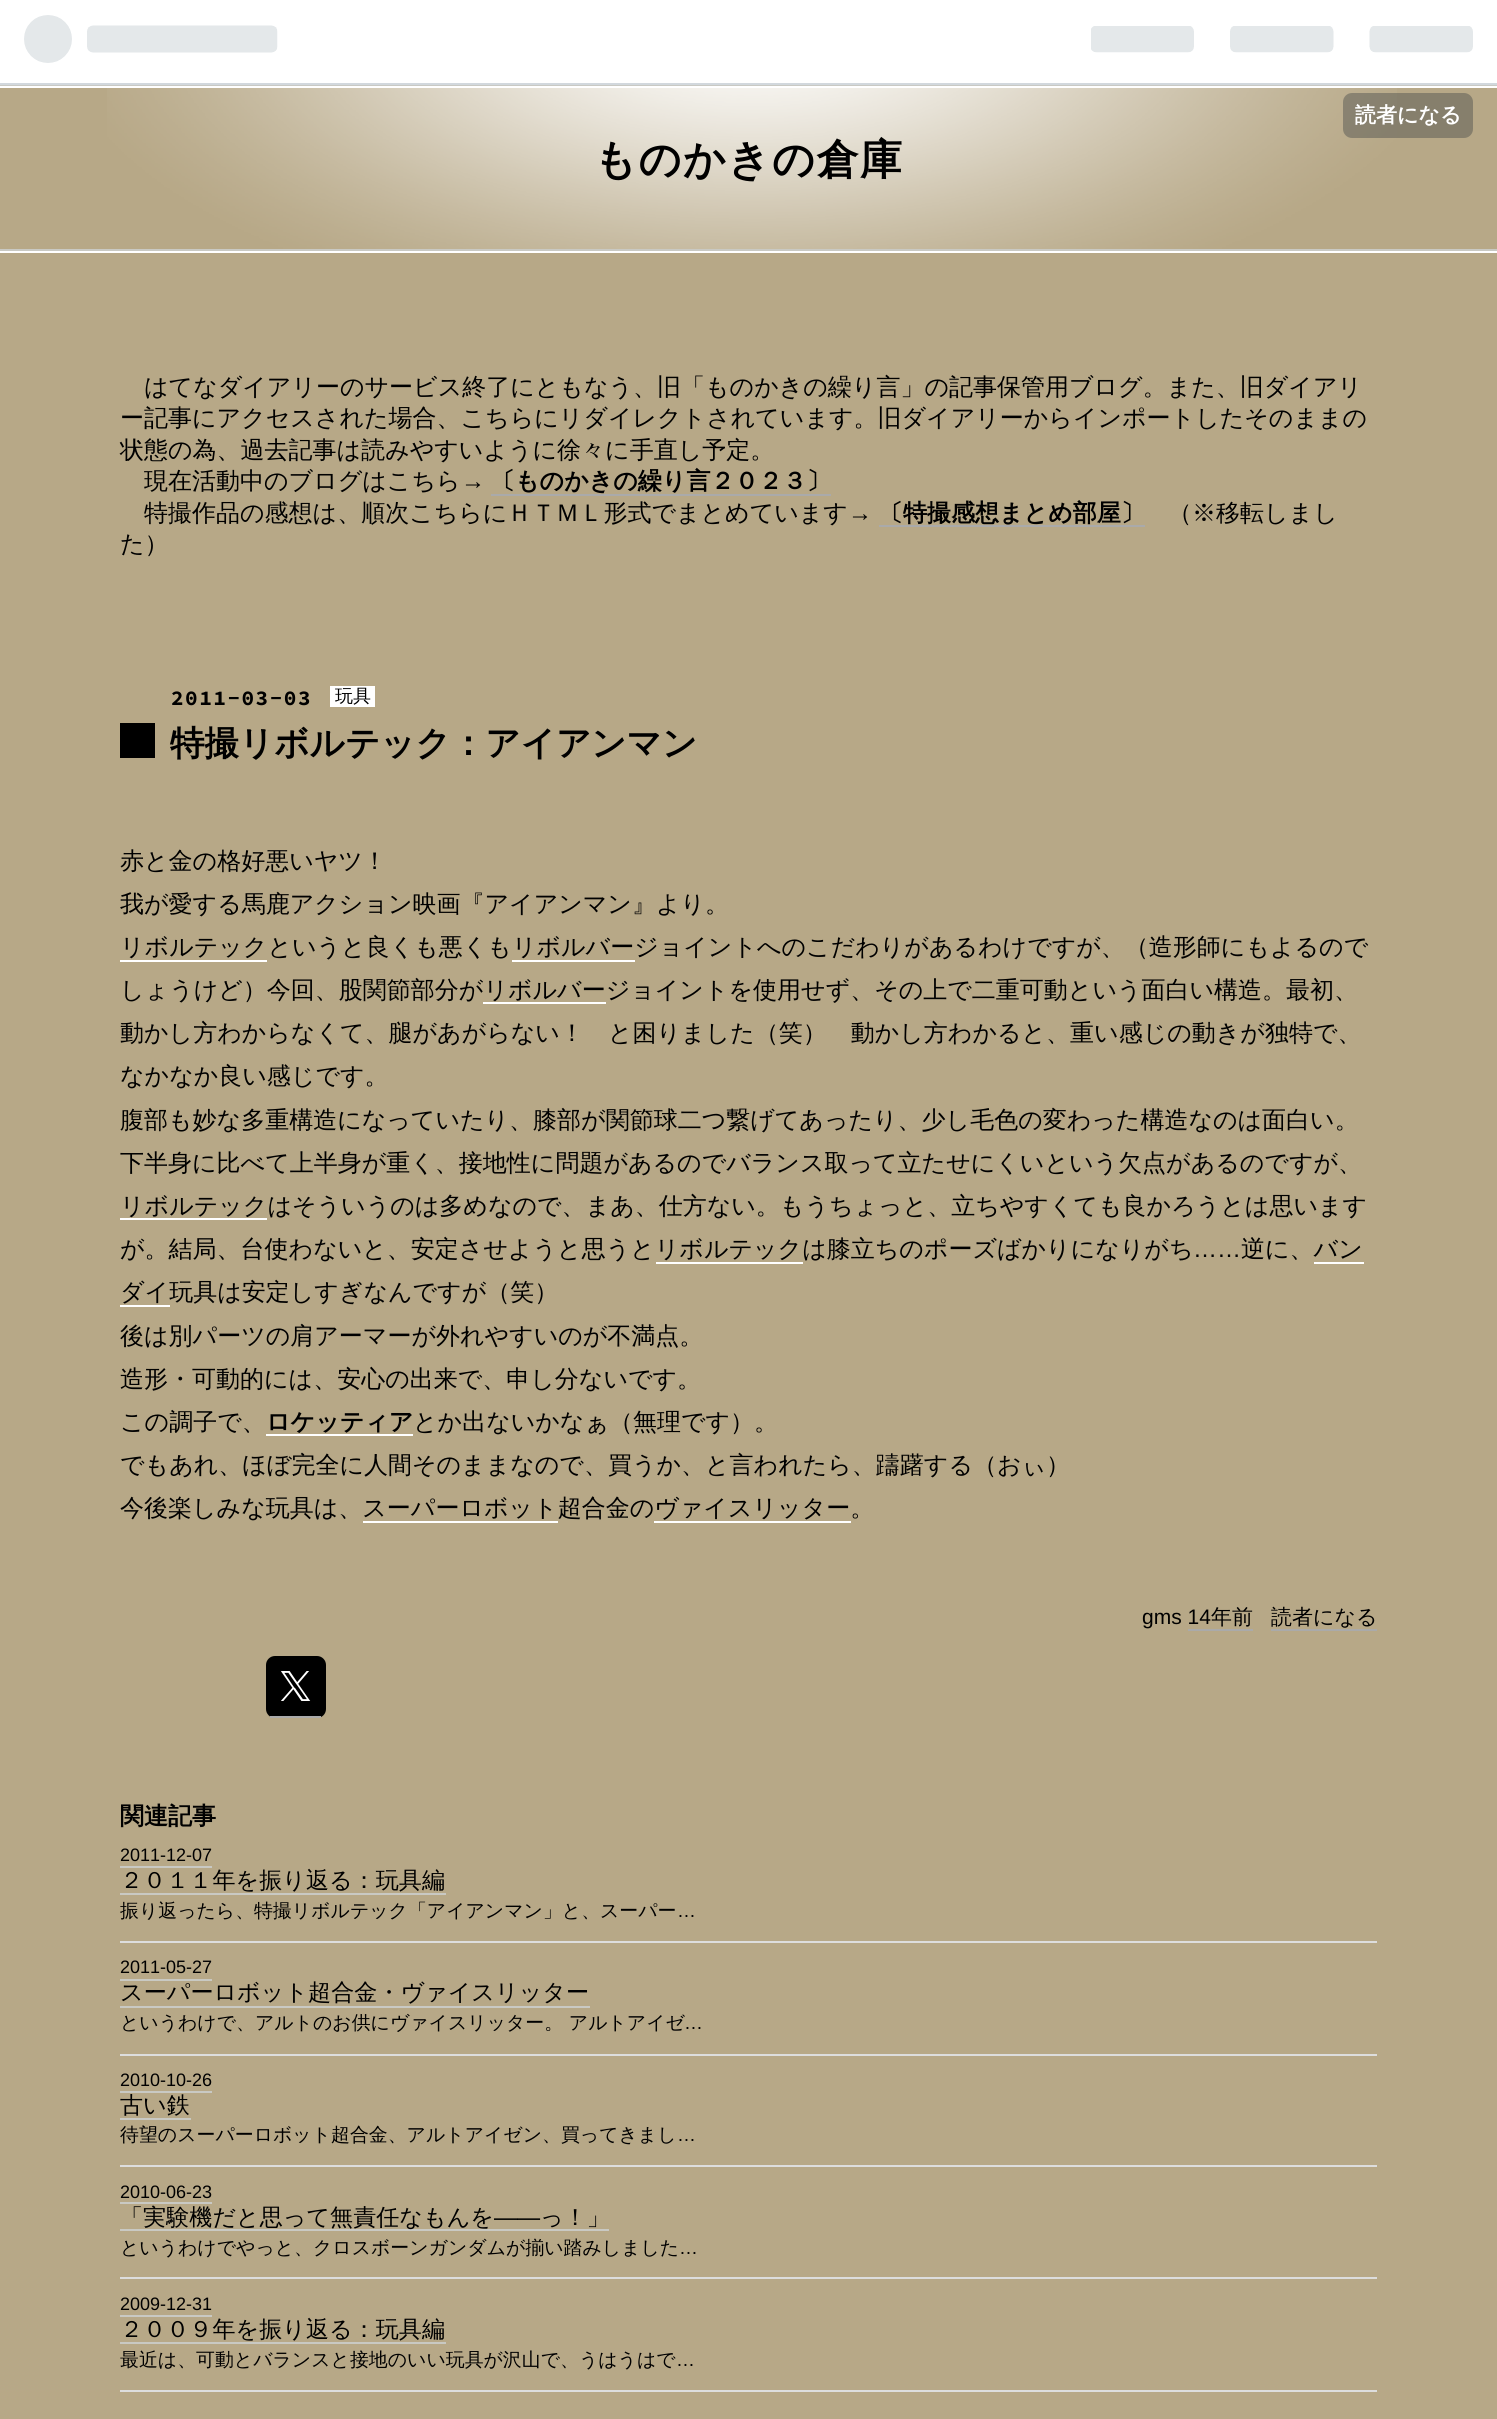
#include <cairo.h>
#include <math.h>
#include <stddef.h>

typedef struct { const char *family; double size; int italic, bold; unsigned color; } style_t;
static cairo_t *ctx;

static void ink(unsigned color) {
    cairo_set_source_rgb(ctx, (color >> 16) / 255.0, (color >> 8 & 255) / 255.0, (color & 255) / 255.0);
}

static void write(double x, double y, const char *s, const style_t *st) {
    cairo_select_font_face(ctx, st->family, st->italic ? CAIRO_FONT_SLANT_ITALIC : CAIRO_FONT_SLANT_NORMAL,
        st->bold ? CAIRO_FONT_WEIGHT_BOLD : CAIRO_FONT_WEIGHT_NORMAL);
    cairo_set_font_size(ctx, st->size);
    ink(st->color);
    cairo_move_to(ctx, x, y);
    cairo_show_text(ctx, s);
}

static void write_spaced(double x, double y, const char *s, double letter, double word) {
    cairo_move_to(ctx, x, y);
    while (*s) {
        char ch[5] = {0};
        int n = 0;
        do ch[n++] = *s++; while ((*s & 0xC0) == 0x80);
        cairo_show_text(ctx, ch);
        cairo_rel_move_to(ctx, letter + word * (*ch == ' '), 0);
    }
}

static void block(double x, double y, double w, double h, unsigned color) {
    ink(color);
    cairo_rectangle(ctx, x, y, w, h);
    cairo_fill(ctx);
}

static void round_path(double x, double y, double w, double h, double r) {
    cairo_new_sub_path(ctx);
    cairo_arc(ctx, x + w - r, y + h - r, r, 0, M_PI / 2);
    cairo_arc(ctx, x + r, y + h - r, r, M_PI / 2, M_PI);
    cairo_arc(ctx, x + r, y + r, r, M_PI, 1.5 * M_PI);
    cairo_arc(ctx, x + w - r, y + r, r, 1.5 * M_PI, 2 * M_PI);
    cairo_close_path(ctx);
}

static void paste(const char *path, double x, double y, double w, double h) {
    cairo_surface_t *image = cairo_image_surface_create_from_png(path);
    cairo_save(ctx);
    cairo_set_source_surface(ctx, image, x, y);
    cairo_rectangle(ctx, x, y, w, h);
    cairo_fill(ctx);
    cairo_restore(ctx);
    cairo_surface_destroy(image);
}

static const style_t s1 = {"WenQuanYi Zen Hei", 21, 0, 1, 0xffffff};
static const style_t s2 = {"WenQuanYi Zen Hei Medium", 24, 0, 0, 0x000000};
static const style_t s3 = {"Liberation Sans", 24, 0, 0, 0x000000};
static const style_t s4 = {"WenQuanYi Zen Hei", 24, 0, 1, 0x000000};
static const style_t s5 = {"WenQuanYi Zen Hei Medium", 18, 0, 0, 0x000000};
static const style_t s6 = {"WenQuanYi Zen Hei", 34.5, 0, 1, 0x000000};
static const style_t s7 = {"Liberation Sans", 21, 0, 0, 0x000000};
static const style_t s8 = {"WenQuanYi Zen Hei Medium", 21, 0, 0, 0x000000};
static const style_t s9 = {"Liberation Sans", 18, 0, 0, 0x000000};
static const style_t s10 = {"WenQuanYi Zen Hei Medium", 23.1, 0, 0, 0x000000};
static const style_t s11 = {"WenQuanYi Zen Hei Medium", 18.9, 0, 0, 0x000000};
static const style_t s12 = {"Liberation Sans", 18.9, 0, 0, 0x000000};
static const style_t s13 = {"Liberation Sans", 23.1, 0, 0, 0x000000};

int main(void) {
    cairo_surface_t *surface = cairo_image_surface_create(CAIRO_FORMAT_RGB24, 1497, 2419);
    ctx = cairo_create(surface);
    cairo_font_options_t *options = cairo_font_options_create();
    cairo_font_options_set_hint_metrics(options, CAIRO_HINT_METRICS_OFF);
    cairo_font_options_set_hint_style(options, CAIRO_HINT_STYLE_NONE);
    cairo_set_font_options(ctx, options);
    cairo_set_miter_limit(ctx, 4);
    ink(0xb7a887);
    cairo_paint(ctx);
    block(0, 0, 1497, 83, 0xffffff);
    block(0, 83, 1497, 2, 0xd2d8dd);
    paste("pic1.png", 24, 15, 254, 48);
    paste("pic2.png", 1091, 26, 382, 27);
    paste("pic3.png", 107, 88, 1290, 161);
    cairo_set_source_rgba(ctx, 0.239, 0.259, 0.271, 0.4);
    round_path(1343, 93, 130, 45, 9);
    cairo_fill(ctx);
    write(1355, 122, "読者になる", &s1);
    block(0, 85, 1497, 1, 0xc9c9c3);
    block(0, 249, 1497, 2, 0xc9c9c3);
    block(0, 86, 1497, 2, 0xffffff);
    cairo_set_font_size(ctx, 42);
    ink(0x000000);
    write_spaced(594, 174, "ものかきの倉庫", 1.5, 0);
    block(0, 251, 1497, 2, 0xffffff);
    write(144, 395, "はてなダイアリーのサービス終了にともなう、旧「ものかきの繰り言」の記事保管用ブログ。また、旧ダイアリ", &s2);
    write(120, 426, "ー記事にアクセスされた場合、こちらにリダイレクトされています。旧ダイアリーからインポートしたそのままの", &s2);
    write(120, 458, "状態の為、過去記事は読みやすいように徐々に手直し予定。", &s2);
    write(144, 489, "現在活動中のブログはこちら", &s2);
    write(461, 489, "→", &s3);
    write(491, 489, "〔ものかきの繰り言２０２３〕", &s4);
    block(491, 494, 340, 2, 0xaaaaaa);
    write(144, 521, "特撮作品の感想は、順次こちらにＨＴＭＬ形式でまとめています", &s2);
    write(848, 521, "→", &s3);
    write(879, 521, "〔特撮感想まとめ部屋〕", &s4);
    block(879, 525, 266, 2, 0xaaaaaa);
    write(1168, 521, "（※移転しまし", &s2);
    write(120, 552, "た）", &s2);
    cairo_select_font_face(ctx, "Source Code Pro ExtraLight", CAIRO_FONT_SLANT_NORMAL, CAIRO_FONT_WEIGHT_BOLD);
    cairo_set_font_size(ctx, 21);
    write_spaced(171, 705, "2011-03-03", 1.5, 0);
    block(330, 686, 45, 21, 0xffffff);
    write(335, 702, "玩具", &s5);
    block(120, 723, 35, 35, 0x000000);
    write(170, 755, "特撮リボルテック：アイアンマン", &s6);
    write(120, 869, "赤と金の格好悪いヤツ！", &s2);
    write(120, 912, "我が愛する馬鹿アクション映画『アイアンマン』より。", &s2);
    write(120, 955, "リボルテックというと良くも悪くもリボルバージョイントへのこだわりがあるわけですが、（造形師にもよるので", &s2);
    block(120, 960, 147, 2, 0xffffff);
    block(512, 960, 123, 2, 0xffffff);
    write(120, 998, "しょうけど）今回、股関節部分がリボルバージョイントを使用せず、その上で二重可動という面白い構造。最初、", &s2);
    block(483, 1002, 123, 2, 0xffffff);
    write(120, 1041, "動かし方わからなくて、腿があがらない！　と困りました（笑）　動かし方わかると、重い感じの動きが独特で、", &s2);
    write(120, 1084, "なかなか良い感じです。", &s2);
    write(120, 1128, "腹部も妙な多重構造になっていたり、膝部が関節球二つ繋げてあったり、少し毛色の変わった構造なのは面白い。", &s2);
    write(120, 1171, "下半身に比べて上半身が重く、接地性に問題があるのでバランス取って立たせにくいという欠点があるのですが、", &s2);
    block(120, 1218, 147, 2, 0xffffff);
    write(120, 1214, "リボルテックはそういうのは多めなので、まあ、仕方ない。もうちょっと、立ちやすくても良かろうとは思います", &s2);
    write(120, 1257, "が。結局、台使わないと、安定させようと思うとリボルテックは膝立ちのポーズばかりになりがち", &s2);
    write(1193, 1257, "……", &s3);
    write(1241, 1257, "逆に、バン", &s2);
    block(656, 1262, 147, 2, 0xffffff);
    write(120, 1300, "ダイ玩具は安定しすぎなんですが（笑）", &s2);
    block(1314, 1262, 50, 2, 0xffffff);
    block(120, 1305, 50, 2, 0xffffff);
    write(120, 1344, "後は別パーツの肩アーマーが外れやすいのが不満点。", &s2);
    write(120, 1387, "造形・可動的には、安心の出来で、申し分ないです。", &s2);
    write(120, 1430, "この調子で、", &s2);
    write(266, 1430, "ロケッティア", &s4);
    block(266, 1434, 147, 2, 0xffffff);
    write(413, 1430, "とか出ないかなぁ（無理です）。", &s2);
    write(120, 1473, "でもあれ、ほぼ完全に人間そのままなので、買うか、と言われたら、躊躇する（おぃ）", &s2);
    write(120, 1516, "今後楽しみな玩具は、スーパーロボット超合金のヴァイスリッター。", &s2);
    block(363, 1521, 195, 2, 0xffffff);
    block(654, 1521, 197, 2, 0xffffff);
    write(1142, 1624, "gms 14", &s7);
    write(1211, 1624, "年前", &s8);
    block(1188, 1629, 65, 2, 0xaaaaaa);
    write(1271, 1624, "読者になる", &s8);
    block(1271, 1629, 106, 2, 0xaaaaaa);
    ink(0x000000);
    round_path(266, 1656, 60, 62, 9);
    cairo_fill(ctx);
    paste("pic4.png", 281, 1671, 30, 30);
    block(270, 1716, 51, 2, 0xaaaaaa);
    write(120, 1824, "関連記事", &s4);
    block(120, 1941, 1257, 2, 0xdddddd);
    write(120, 1861, "2011-12-07", &s9);
    block(120, 1866, 92, 2, 0xc9c9c3);
    write(120, 1888, "２０１１年を振り返る：玩具編", &s10);
    block(120, 1893, 326, 2, 0xc9c9c3);
    write(120, 1917, "振り返ったら、特撮リボルテック「アイアンマン」と、スーパー", &s11);
    write(677, 1917, "…", &s12);
    block(120, 2054, 1257, 2, 0xdddddd);
    write(120, 1973, "2011-05-27", &s9);
    block(120, 1979, 92, 2, 0xc9c9c3);
    write(120, 2000, "スーパーロボット超合金・ヴァイスリッター", &s10);
    block(120, 2006, 470, 2, 0xc9c9c3);
    write(120, 2029, "というわけで、アルトのお供にヴァイスリッター。 アルトアイゼ", &s11);
    write(684, 2029, "…", &s12);
    block(120, 2165, 1257, 2, 0xdddddd);
    write(120, 2086, "2010-10-26", &s9);
    block(120, 2091, 92, 2, 0xc9c9c3);
    write(120, 2113, "古い鉄", &s10);
    block(120, 2118, 71, 2, 0xc9c9c3);
    write(120, 2141, "待望のスーパーロボット超合金、アルトアイゼン、買ってきまし", &s11);
    write(677, 2141, "…", &s12);
    block(120, 2277, 1257, 2, 0xdddddd);
    write(120, 2198, "2010-06-23", &s9);
    block(120, 2202, 92, 2, 0xc9c9c3);
    block(120, 2229, 489, 2, 0xc9c9c3);
    write(120, 2225, "「実験機だと思って無責任なもんを", &s10);
    write(494, 2225, "――", &s13);
    write(540, 2225, "っ！」", &s10);
    write(120, 2254, "というわけでやっと、クロスボーンガンダムが揃い踏みしました", &s11);
    write(679, 2254, "…", &s12);
    block(120, 2390, 1257, 2, 0xdddddd);
    write(120, 2310, "2009-12-31", &s9);
    block(120, 2315, 92, 2, 0xc9c9c3);
    write(120, 2337, "２００９年を振り返る：玩具編", &s10);
    block(120, 2342, 326, 2, 0xc9c9c3);
    write(120, 2366, "最近は、可動とバランスと接地のいい玩具が沢山で、うはうはで", &s11);
    write(676, 2366, "…", &s12);
    cairo_surface_write_to_png(surface, "screenshot.png");
    cairo_font_options_destroy(options);
    cairo_destroy(ctx);
    cairo_surface_destroy(surface);
    return 0;
}
